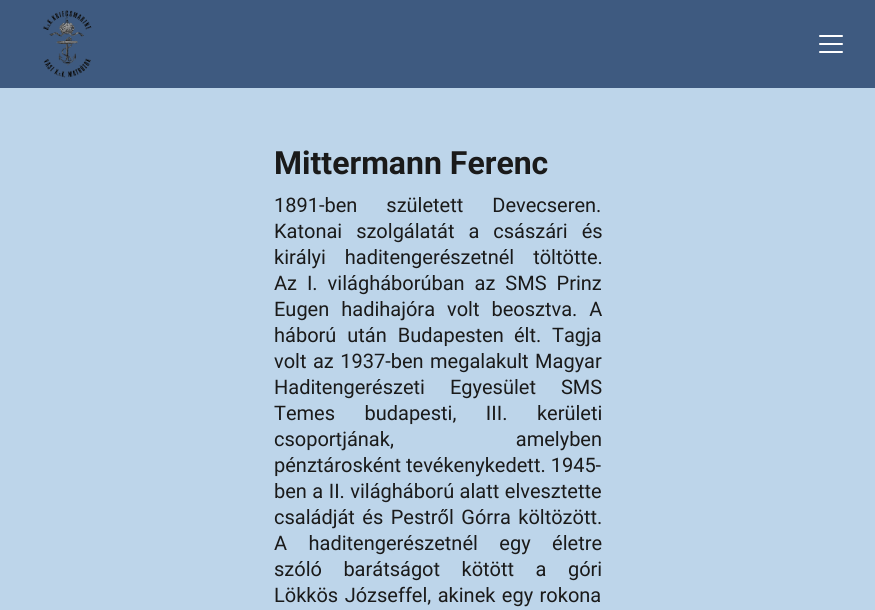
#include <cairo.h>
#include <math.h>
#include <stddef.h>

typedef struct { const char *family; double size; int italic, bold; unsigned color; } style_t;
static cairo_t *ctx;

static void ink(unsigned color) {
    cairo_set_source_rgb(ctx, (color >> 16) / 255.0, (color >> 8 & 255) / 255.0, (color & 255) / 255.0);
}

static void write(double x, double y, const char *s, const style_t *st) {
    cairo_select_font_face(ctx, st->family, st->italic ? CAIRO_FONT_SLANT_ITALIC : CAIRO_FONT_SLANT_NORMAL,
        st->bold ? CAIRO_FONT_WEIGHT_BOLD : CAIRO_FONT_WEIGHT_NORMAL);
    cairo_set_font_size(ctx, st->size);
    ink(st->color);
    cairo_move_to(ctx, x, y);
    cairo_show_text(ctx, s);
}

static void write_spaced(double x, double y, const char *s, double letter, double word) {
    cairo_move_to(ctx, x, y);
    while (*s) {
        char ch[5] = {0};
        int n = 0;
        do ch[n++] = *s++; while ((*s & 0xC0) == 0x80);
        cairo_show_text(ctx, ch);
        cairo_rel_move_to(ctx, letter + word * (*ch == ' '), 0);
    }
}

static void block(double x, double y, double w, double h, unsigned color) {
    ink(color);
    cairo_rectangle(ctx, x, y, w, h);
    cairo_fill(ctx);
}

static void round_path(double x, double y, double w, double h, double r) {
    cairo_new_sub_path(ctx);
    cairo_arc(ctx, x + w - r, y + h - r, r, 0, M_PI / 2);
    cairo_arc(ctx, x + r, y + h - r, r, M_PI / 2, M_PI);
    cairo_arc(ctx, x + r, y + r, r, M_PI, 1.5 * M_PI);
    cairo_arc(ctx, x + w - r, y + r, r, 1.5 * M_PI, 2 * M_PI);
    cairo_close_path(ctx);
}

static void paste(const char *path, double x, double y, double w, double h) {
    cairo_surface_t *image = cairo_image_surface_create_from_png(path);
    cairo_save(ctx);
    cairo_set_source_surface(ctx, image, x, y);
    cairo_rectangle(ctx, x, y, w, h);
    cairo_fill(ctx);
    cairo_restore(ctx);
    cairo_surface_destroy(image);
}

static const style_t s1 = {"Roboto", 32, 0, 1, 0x1a1a1a};
static const style_t s2 = {"Roboto", 20, 0, 0, 0x1a1a1a};

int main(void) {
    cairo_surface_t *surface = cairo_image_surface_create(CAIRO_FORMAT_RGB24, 875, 610);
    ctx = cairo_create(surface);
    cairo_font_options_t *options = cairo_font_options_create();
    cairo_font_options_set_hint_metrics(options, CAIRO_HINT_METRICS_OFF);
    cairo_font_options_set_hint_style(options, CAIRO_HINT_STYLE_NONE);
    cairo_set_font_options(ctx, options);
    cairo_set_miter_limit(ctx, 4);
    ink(0xbdd5ea);
    cairo_paint(ctx);
    block(0, 0, 875, 88, 0x3e5a80);
    paste("pic1.png", 43, 10, 49, 68);
    ink(0xffffff);
    round_path(819, 35, 24, 2, 1);
    cairo_fill(ctx);
    round_path(819, 43, 24, 2, 1);
    cairo_fill(ctx);
    round_path(819, 51, 24, 2, 1);
    cairo_fill(ctx);
    write(274, 174, "Mittermann Ferenc", &s1);
    cairo_select_font_face(ctx, "Roboto", CAIRO_FONT_SLANT_NORMAL, CAIRO_FONT_WEIGHT_NORMAL);
    cairo_set_font_size(ctx, 20);
    write_spaced(274, 212, "1891-ben született Devecseren.", 0, 24);
    write_spaced(274, 238, "Katonai szolgálatát a császári és", 0, 9);
    write_spaced(274, 264, "királyi haditengerészetnél töltötte.", 0, 14);
    write_spaced(274, 290, "Az I. világháborúban az SMS Prinz", 0, 5);
    write_spaced(274, 316, "Eugen hadihajóra volt beosztva. A", 0, 7);
    write_spaced(274, 342, "háború után Budapesten", 0, 6);
    write(514, 342, "élt.", &s2);
    write(552, 342, "Tagja", &s2);
    write_spaced(274, 368, "volt az 1937-ben megalakult Magyar", 0, 1.5);
    write_spaced(274, 394, "Haditengerészeti Egyesület SMS", 0, 20);
    write_spaced(274, 420, "Temes budapesti, III. kerületi", 0, 24.5);
    write_spaced(274, 446, "csoportjának, amelyben", 0, 117);
    write(274, 472, "pénztárosként tevékenykedett. 1945-", &s2);
    write_spaced(274, 498, "ben a II. világháború alatt elvesztette", 0, 0.5);
    write_spaced(274, 524, "családját és Pestről Górra költözött.", 0, 2.5);
    write_spaced(274, 550, "A haditengerészetnél egy életre", 0, 16.5);
    write_spaced(274, 576, "szóló barátságot kötött a góri", 0, 16.5);
    write_spaced(274, 602, "Lökkös Józseffel, akinek egy rokona", 0, 1.5);
    cairo_surface_write_to_png(surface, "screenshot.png");
    cairo_font_options_destroy(options);
    cairo_destroy(ctx);
    cairo_surface_destroy(surface);
    return 0;
}
